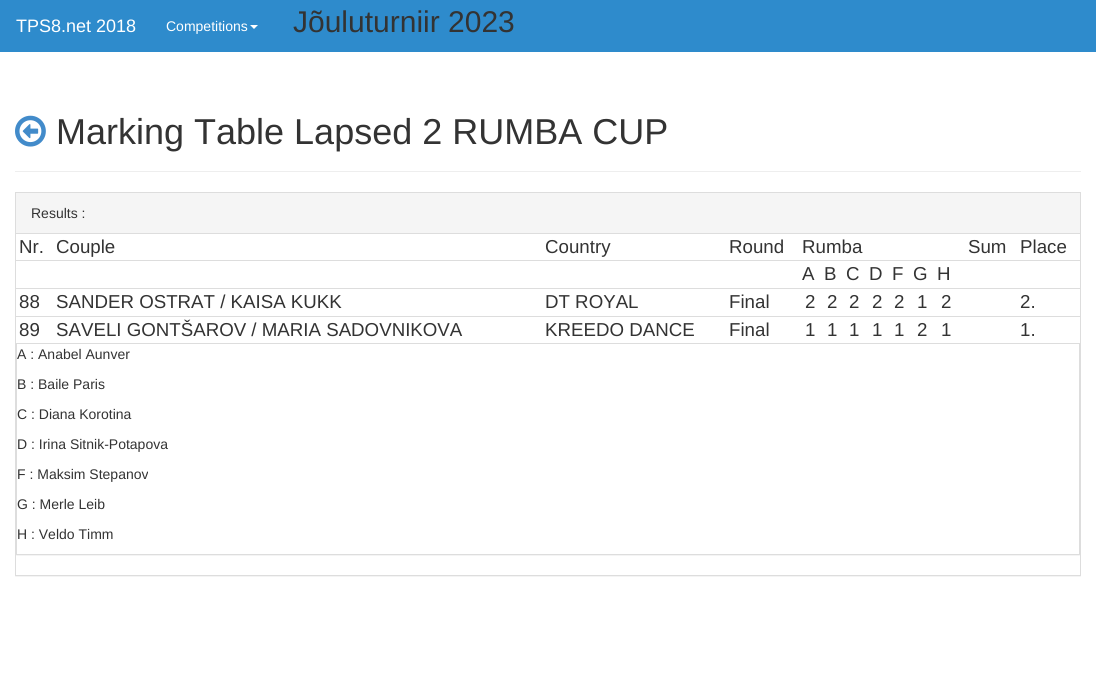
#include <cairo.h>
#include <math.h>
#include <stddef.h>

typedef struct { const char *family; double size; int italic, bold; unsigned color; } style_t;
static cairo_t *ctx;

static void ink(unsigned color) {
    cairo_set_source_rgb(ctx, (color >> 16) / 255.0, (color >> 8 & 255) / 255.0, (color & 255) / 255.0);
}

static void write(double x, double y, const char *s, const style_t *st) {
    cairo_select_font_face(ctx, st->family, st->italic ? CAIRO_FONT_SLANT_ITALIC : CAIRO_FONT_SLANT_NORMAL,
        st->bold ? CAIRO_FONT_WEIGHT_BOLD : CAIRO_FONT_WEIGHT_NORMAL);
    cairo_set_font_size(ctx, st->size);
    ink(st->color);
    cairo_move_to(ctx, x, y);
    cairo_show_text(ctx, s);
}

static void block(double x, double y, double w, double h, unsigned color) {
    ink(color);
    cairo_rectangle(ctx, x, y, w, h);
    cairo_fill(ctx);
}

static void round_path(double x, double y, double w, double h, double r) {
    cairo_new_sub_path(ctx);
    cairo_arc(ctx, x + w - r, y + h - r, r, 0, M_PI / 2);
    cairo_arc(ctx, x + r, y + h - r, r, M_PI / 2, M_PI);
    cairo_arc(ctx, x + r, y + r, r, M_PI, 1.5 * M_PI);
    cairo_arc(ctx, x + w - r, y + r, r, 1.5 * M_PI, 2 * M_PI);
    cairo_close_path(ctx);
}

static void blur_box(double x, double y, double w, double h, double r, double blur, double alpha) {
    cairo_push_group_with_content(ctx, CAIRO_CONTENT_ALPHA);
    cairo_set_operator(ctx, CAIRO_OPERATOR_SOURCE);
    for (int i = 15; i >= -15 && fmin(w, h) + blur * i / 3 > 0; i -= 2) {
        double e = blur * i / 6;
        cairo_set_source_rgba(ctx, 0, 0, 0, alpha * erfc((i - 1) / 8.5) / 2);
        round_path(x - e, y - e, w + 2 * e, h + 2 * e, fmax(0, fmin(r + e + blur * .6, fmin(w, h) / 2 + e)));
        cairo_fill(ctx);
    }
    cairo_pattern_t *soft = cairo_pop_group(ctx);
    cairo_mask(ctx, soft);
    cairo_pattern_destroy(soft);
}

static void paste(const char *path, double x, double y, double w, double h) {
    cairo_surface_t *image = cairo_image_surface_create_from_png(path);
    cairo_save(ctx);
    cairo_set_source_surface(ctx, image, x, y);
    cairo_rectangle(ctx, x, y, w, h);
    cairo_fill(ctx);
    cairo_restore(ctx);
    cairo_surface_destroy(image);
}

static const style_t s1 = {"Liberation Sans", 18, 0, 0, 0xffffff};
static const style_t s2 = {"Liberation Sans", 14, 0, 0, 0xffffff};
static const style_t s3 = {"Liberation Sans", 30, 0, 0, 0x333333};
static const style_t s4 = {"Liberation Sans", 36, 0, 0, 0x333333};
static const style_t s5 = {"Liberation Sans", 14, 0, 0, 0x333333};
static const style_t s6 = {"Liberation Sans", 18.7, 0, 0, 0x333333};

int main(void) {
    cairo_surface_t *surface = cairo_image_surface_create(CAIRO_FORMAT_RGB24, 1096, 692);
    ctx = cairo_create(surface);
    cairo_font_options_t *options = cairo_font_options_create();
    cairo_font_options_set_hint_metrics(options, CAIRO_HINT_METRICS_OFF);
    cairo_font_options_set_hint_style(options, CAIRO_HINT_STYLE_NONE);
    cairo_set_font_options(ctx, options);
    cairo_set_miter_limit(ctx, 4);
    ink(0xffffff);
    cairo_paint(ctx);
    block(0, 0, 1096, 52, 0x2e8bcc);
    write(16, 32, "TPS8.net 2018", &s1);
    write(166, 31, "Competitions", &s2);
    cairo_new_path(ctx);
    cairo_move_to(ctx, 250, 25);
    cairo_line_to(ctx, 258, 25);
    cairo_line_to(ctx, 254, 29);
    cairo_close_path(ctx);
    cairo_fill(ctx);
    write(293, 32, "Jõuluturniir 2023", &s3);
    block(15, 171, 1066, 1, 0xeeeeee);
    paste("pic1.png", 15, 115, 31, 32);
    write(56, 144, "Marking Table Lapsed 2 RUMBA CUP", &s4);
    cairo_save(ctx);
    cairo_rectangle(ctx, 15, 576, 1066, 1);
    cairo_clip(ctx);
    ink(0x000000);
    blur_box(15, 193, 1066, 384, 0, 0.5, 0.05);
    cairo_restore(ctx);
    cairo_rectangle(ctx, 15.5, 192.5, 1065, 383);
    ink(0xdddddd);
    cairo_set_line_width(ctx, 1);
    cairo_stroke(ctx);
    block(16, 193, 1064, 40, 0xf5f5f5);
    block(16, 233, 1064, 1, 0xdddddd);
    write(31, 218, "Results :", &s5);
    write(19, 253, "Nr.", &s6);
    write(56, 253, "Couple", &s6);
    write(545, 253, "Country", &s6);
    write(729, 253, "Round", &s6);
    write(802, 253, "Rumba", &s6);
    write(968, 253, "Sum", &s6);
    write(1020, 253, "Place", &s6);
    block(16, 260, 1064, 1, 0xdddddd);
    write(802, 280, "A", &s6);
    write(824, 280, "B", &s6);
    write(846, 280, "C", &s6);
    write(869, 280, "D", &s6);
    write(892, 280, "F", &s6);
    write(913, 280, "G", &s6);
    write(937, 280, "H", &s6);
    write(19, 308, "88", &s6);
    write(56, 308, "SANDER OSTRAT / KAISA KUKK", &s6);
    write(545, 308, "DT ROYAL", &s6);
    write(729, 308, "Final", &s6);
    write(805, 308, "2", &s6);
    write(827, 308, "2", &s6);
    write(849, 308, "2", &s6);
    write(872, 308, "2", &s6);
    write(894, 308, "2", &s6);
    write(917, 308, "1", &s6);
    write(941, 308, "2", &s6);
    block(16, 288, 1064, 1, 0xdddddd);
    write(1020, 308, "2.", &s6);
    write(19, 336, "89", &s6);
    write(56, 336, "SAVELI GONTŠAROV / MARIA SADOVNIKOVA", &s6);
    write(545, 336, "KREEDO DANCE", &s6);
    write(729, 336, "Final", &s6);
    write(805, 336, "1", &s6);
    write(827, 336, "1", &s6);
    write(849, 336, "1", &s6);
    write(872, 336, "1", &s6);
    write(894, 336, "1", &s6);
    write(917, 336, "2", &s6);
    write(941, 336, "1", &s6);
    block(16, 316, 1064, 1, 0xdddddd);
    write(1020, 336, "1.", &s6);
    cairo_save(ctx);
    cairo_rectangle(ctx, 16, 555, 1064, 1);
    cairo_clip(ctx);
    ink(0x000000);
    blur_box(16, 344, 1064, 212, 0, 0.5, 0.05);
    cairo_restore(ctx);
    cairo_rectangle(ctx, 16.5, 343.5, 1063, 211);
    ink(0xdddddd);
    cairo_stroke(ctx);
    write(17, 359, "A : Anabel Aunver", &s5);
    write(17, 389, "B : Baile Paris", &s5);
    write(17, 419, "C : Diana Korotina", &s5);
    write(17, 449, "D : Irina Sitnik-Potapova", &s5);
    write(17, 479, "F : Maksim Stepanov", &s5);
    write(17, 509, "G : Merle Leib", &s5);
    write(17, 539, "H : Veldo Timm", &s5);
    cairo_surface_write_to_png(surface, "screenshot.png");
    cairo_font_options_destroy(options);
    cairo_destroy(ctx);
    cairo_surface_destroy(surface);
    return 0;
}
